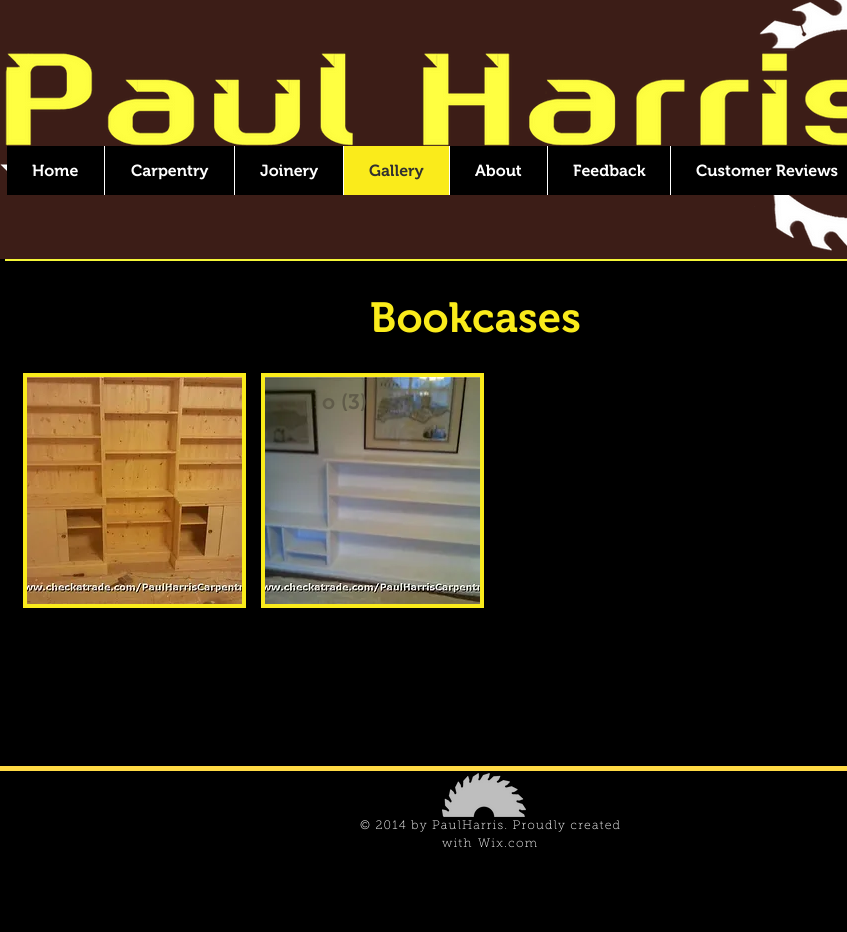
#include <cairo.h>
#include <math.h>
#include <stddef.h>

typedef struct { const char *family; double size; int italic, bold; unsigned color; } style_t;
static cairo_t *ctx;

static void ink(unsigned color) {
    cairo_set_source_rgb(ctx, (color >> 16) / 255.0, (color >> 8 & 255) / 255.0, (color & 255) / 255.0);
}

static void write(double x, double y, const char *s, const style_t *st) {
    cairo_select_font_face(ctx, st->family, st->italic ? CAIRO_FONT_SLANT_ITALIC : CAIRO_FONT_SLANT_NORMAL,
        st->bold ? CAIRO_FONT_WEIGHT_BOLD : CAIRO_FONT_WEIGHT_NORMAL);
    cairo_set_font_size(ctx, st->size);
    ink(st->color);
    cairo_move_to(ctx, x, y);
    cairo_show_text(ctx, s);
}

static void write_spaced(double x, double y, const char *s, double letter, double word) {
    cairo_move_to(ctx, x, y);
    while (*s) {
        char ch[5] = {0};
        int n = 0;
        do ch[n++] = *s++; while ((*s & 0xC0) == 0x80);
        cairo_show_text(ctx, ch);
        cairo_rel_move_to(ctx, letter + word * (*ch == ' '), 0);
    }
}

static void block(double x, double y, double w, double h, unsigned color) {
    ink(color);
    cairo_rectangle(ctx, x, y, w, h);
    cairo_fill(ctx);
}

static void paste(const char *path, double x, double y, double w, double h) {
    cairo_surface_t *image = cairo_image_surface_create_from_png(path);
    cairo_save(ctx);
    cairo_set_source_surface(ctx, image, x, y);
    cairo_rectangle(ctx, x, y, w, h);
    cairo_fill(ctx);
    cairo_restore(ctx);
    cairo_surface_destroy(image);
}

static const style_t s1 = {"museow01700 SemiBold", 16, 0, 0, 0xffffff};
static const style_t s2 = {"museow01700 SemiBold", 16, 0, 0, 0x303030};
static const style_t s3 = {"museow01700 SemiBold", 42, 0, 0, 0xfaeb1b};
static const style_t s4 = {"museow01700 SemiBold", 21, 0, 0, 0xc08b4f};
static const style_t s5 = {"museow01700 SemiBold", 21, 0, 0, 0x605b49};

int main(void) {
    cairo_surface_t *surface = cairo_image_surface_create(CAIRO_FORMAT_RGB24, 847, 932);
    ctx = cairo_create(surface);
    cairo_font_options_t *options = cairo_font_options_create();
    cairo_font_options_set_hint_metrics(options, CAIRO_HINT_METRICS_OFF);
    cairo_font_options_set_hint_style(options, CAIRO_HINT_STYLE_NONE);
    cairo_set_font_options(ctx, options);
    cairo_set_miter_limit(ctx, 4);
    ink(0x000000);
    cairo_paint(ctx);
    block(0, 0, 847, 259, 0x3c1d17);
    paste("pic1.png", 0, 0, 847, 251);
    block(5, 259, 842, 2, 0xf4f537);
    block(7, 146, 840, 49, 0x000000);
    write(32, 176, "Home", &s1);
    block(104, 146, 1, 49, 0xffffff);
    write(131, 176, "Carpentry", &s1);
    block(234, 146, 1, 49, 0xffffff);
    write(260, 176, "Joinery", &s1);
    block(344, 146, 105, 49, 0xfaeb1b);
    block(343, 146, 1, 49, 0xffffff);
    write(369, 176, "Gallery", &s2);
    block(449, 146, 1, 49, 0xffffff);
    write(475, 176, "About", &s1);
    block(547, 146, 1, 49, 0xffffff);
    write(573, 176, "Feedback", &s1);
    block(670, 146, 1, 49, 0xffffff);
    write(696, 176, "Customer Reviews", &s1);
    write(370, 332, "Bookcases", &s3);
    block(23, 373, 223, 235, 0xfaeb1b);
    paste("pic2.png", 27, 377, 215, 227);
    write(145, 409, "j", &s4);
    block(261, 373, 223, 235, 0xfaeb1b);
    paste("pic3.png", 265, 377, 215, 227);
    write(322, 409, "o (3)", &s5);
    block(0, 766, 847, 5, 0xffda44);
    paste("pic4.png", 442, 773, 84, 44);
    cairo_select_font_face(ctx, "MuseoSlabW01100 Thin", CAIRO_FONT_SLANT_NORMAL, CAIRO_FONT_WEIGHT_NORMAL);
    cairo_set_font_size(ctx, 12.25);
    ink(0xffffff);
    write_spaced(360, 829, "© 2014 by PaulHarris. Proudly created", 1.2, 0);
    write_spaced(442, 847, "with", 1.2, 0);
    write_spaced(478, 847, "Wix.com", 1.2, 0);
    cairo_surface_write_to_png(surface, "screenshot.png");
    cairo_font_options_destroy(options);
    cairo_destroy(ctx);
    cairo_surface_destroy(surface);
    return 0;
}
